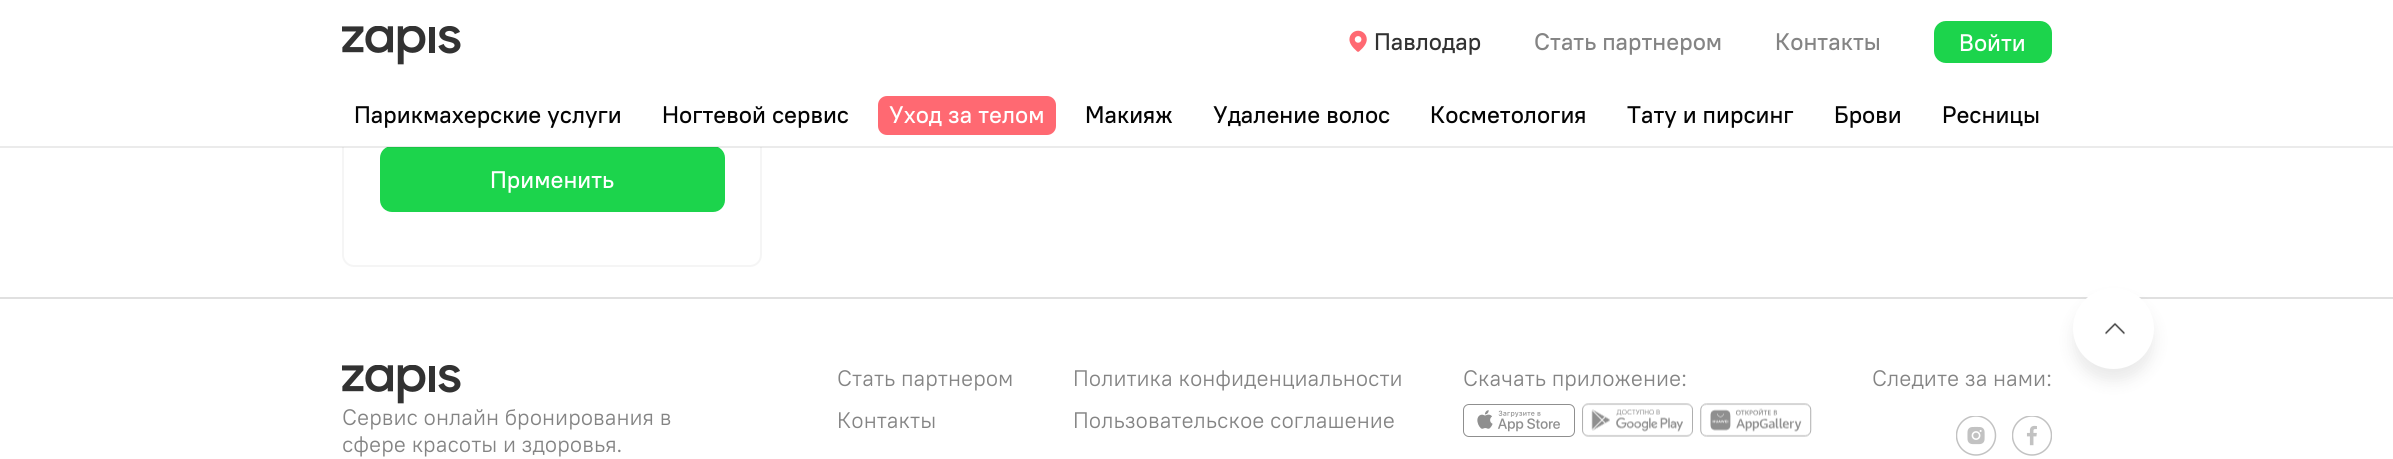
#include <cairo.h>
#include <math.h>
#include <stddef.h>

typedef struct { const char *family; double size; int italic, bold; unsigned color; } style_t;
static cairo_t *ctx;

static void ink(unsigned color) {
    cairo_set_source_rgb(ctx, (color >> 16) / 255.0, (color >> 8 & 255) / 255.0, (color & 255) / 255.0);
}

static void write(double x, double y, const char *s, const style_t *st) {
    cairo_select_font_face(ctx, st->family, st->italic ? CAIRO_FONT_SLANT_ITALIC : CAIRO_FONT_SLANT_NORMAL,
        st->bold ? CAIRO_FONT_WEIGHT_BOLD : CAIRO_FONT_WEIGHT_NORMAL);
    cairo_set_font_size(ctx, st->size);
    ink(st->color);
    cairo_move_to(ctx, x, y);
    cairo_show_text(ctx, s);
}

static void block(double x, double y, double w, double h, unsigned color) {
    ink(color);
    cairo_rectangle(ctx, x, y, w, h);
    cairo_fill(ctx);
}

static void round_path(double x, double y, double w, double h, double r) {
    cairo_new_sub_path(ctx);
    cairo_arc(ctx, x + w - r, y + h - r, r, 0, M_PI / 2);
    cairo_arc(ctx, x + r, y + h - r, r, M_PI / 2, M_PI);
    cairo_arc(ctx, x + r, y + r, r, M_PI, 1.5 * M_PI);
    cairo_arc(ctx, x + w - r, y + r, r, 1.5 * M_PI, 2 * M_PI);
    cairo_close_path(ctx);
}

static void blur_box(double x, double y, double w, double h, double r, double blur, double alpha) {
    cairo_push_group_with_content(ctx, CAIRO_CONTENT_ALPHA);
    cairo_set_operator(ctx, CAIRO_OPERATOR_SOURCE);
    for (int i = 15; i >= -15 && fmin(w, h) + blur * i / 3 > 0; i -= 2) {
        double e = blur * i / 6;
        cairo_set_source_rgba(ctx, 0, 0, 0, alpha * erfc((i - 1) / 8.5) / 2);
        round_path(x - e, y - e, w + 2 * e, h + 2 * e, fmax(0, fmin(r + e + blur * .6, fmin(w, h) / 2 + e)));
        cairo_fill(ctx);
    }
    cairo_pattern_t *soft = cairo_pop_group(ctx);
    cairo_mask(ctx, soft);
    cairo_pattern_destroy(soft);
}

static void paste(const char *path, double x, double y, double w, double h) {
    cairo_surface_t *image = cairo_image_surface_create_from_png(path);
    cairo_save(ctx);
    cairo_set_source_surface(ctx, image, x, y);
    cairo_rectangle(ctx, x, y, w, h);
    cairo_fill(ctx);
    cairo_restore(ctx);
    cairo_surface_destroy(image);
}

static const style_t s1 = {"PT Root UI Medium", 24, 0, 0, 0x323232};
static const style_t s2 = {"PT Root UI Medium", 24, 0, 0, 0x848484};
static const style_t s3 = {"PT Root UI Medium", 24, 0, 0, 0xffffff};
static const style_t s4 = {"PT Root UI Medium", 24, 0, 0, 0x040404};
static const style_t s5 = {"PT Root UI", 22.5, 0, 0, 0x848484};

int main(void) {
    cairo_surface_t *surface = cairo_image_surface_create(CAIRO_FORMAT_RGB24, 2393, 459);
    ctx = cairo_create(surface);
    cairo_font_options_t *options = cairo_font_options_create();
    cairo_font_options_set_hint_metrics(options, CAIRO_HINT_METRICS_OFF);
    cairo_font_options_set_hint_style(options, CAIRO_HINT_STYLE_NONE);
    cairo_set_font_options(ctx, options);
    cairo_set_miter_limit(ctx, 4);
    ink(0xffffff);
    cairo_paint(ctx);
    round_path(343, -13, 418, 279, 11);
    ink(0xf5f5f5);
    cairo_stroke(ctx);
    ink(0x1cd44c);
    round_path(380, 146, 345, 66, 12);
    cairo_fill(ctx);
    block(342, 0, 420, 147, 0xffffff);
    cairo_set_source_rgba(ctx, 0, 0, 0, 0.08);
    cairo_rectangle(ctx, 0, 146, 2393, 2);
    cairo_fill(ctx);
    paste("pic1.png", 342, 26, 119, 39);
    paste("pic2.png", 1349, 30, 18, 22);
    write(1374, 50, "Павлодар", &s1);
    write(1534, 50, "Стать партнером", &s2);
    write(1775, 50, "Контакты", &s2);
    ink(0x1cd44c);
    round_path(1934, 21, 118, 42, 12);
    cairo_fill(ctx);
    write(1959, 51, "Войти", &s3);
    write(354, 123, "Парикмахерские услуги", &s4);
    write(662, 123, "Ногтевой сервис", &s4);
    ink(0xff6972);
    round_path(878, 96, 178, 39, 9);
    cairo_fill(ctx);
    write(889, 123, "Уход за телом", &s3);
    write(1085, 123, "Макияж", &s4);
    write(1213, 123, "Удаление волос", &s4);
    write(1430, 123, "Косметология", &s4);
    write(1627, 123, "Тату и пирсинг", &s4);
    write(1834, 123, "Брови", &s4);
    write(1942, 123, "Ресницы", &s4);
    write(490, 188, "Применить", &s3);
    block(0, 297, 2393, 2, 0xe0e0e0);
    ink(0x303030);
    blur_box(2073, 300, 81, 81, 40.5, 7.5, 0.1);
    ink(0xffffff);
    cairo_arc(ctx, 2113.5, 328.5, 40.5, 0, 2 * M_PI);
    cairo_fill(ctx);
    paste("pic3.png", 2105, 322, 20, 13);
    write(837, 386, "Стать партнером", &s5);
    write(837, 428, "Контакты", &s5);
    write(1073, 386, "Политика конфиденциальности", &s5);
    write(1073, 428, "Пользовательское соглашение", &s5);
    write(1463, 386, "Скачать приложение:", &s5);
    paste("pic4.png", 1463, 404, 112, 33);
    paste("pic5.png", 1582, 403, 111, 34);
    paste("pic6.png", 1700, 403, 112, 34);
    write(1872, 386, "Следите за нами:", &s5);
    paste("pic7.png", 1956, 416, 41, 40);
    paste("pic8.png", 2012, 416, 40, 40);
    paste("pic1.png", 342, 365, 119, 39);
    write(342, 425, "Сервис онлайн бронирования в", &s5);
    write(342, 452, "сфере красоты и здоровья.", &s5);
    cairo_surface_write_to_png(surface, "screenshot.png");
    cairo_font_options_destroy(options);
    cairo_destroy(ctx);
    cairo_surface_destroy(surface);
    return 0;
}
